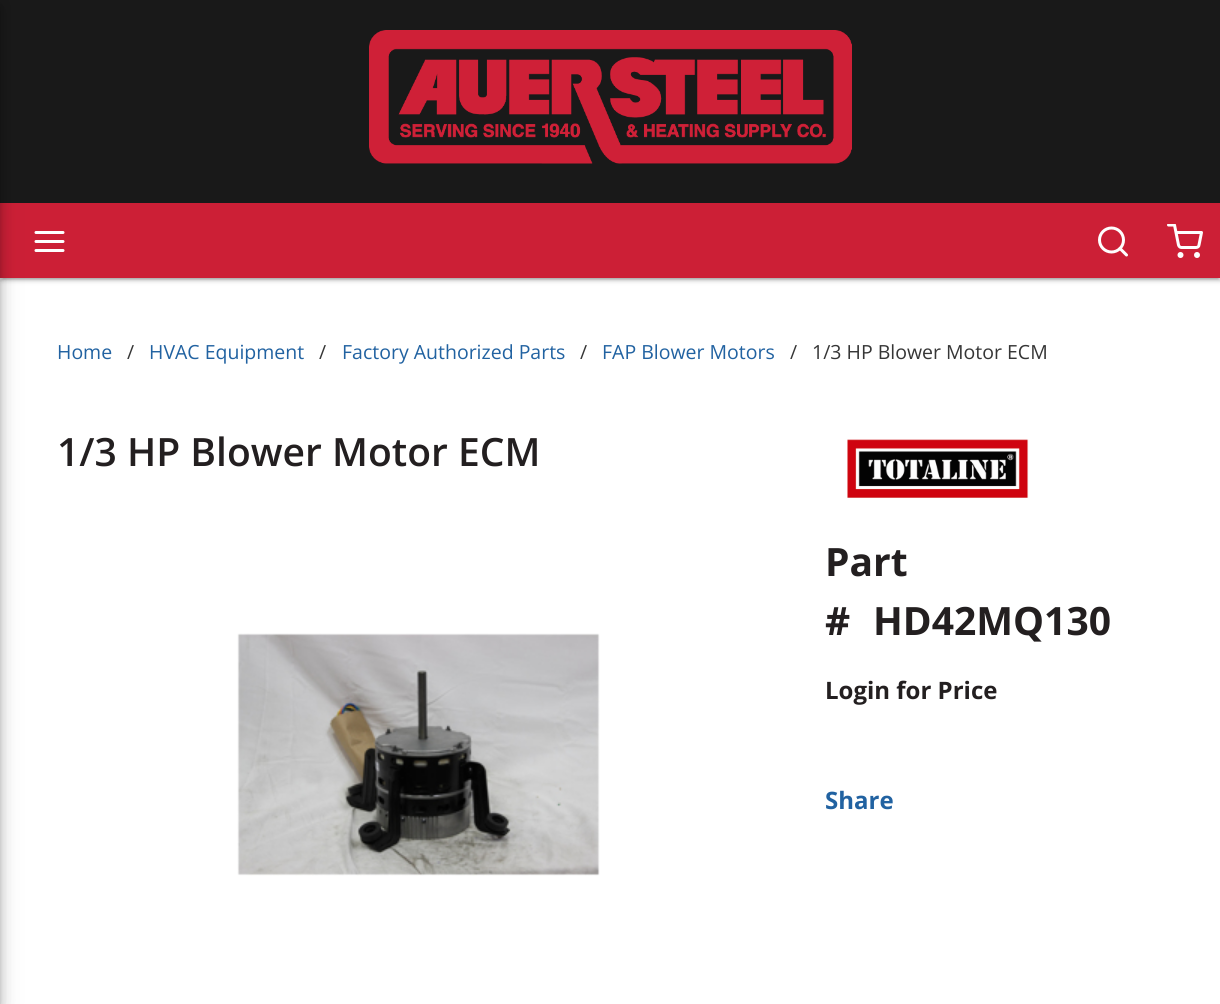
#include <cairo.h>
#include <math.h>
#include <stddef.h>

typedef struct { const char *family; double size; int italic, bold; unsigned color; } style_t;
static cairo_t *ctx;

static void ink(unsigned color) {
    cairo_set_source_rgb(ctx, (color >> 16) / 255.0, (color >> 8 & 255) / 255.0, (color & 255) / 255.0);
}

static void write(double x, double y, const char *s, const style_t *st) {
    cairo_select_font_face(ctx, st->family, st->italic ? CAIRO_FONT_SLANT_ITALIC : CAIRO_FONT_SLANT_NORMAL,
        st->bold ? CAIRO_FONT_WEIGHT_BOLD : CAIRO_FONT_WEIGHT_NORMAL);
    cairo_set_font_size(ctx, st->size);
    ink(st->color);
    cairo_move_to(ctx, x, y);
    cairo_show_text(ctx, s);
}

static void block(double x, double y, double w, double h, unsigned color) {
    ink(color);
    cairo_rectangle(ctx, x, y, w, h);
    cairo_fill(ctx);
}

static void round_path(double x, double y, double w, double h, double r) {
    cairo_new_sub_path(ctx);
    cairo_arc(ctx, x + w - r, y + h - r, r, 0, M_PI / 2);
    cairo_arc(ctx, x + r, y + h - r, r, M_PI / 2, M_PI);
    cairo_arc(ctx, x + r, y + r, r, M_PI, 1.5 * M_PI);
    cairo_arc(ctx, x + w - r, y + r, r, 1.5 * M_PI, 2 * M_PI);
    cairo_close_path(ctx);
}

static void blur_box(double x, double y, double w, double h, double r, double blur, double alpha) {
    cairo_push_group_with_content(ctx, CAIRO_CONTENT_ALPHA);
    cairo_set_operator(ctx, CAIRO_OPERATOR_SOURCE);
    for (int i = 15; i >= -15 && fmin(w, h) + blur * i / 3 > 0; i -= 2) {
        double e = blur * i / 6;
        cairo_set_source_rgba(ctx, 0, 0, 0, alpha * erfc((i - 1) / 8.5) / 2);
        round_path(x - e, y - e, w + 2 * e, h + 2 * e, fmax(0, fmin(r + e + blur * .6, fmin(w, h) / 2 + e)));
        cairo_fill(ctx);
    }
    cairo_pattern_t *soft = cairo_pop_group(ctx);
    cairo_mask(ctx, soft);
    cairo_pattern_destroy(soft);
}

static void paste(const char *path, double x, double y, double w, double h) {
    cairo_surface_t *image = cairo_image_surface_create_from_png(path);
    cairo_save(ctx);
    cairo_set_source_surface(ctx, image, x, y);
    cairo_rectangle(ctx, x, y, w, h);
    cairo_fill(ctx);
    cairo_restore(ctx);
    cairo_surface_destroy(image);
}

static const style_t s1 = {"Open Sans", 19.5, 0, 0, 0x2162a1};
static const style_t s2 = {"Open Sans", 19.5, 0, 0, 0x363636};
static const style_t s3 = {"Open Sans SemiBold", 39, 0, 0, 0x231f20};
static const style_t s4 = {"Open Sans", 39, 0, 1, 0x231f20};
static const style_t s5 = {"Open Sans", 24, 0, 1, 0x231f20};
static const style_t s6 = {"Open Sans", 24, 0, 1, 0x2162a1};

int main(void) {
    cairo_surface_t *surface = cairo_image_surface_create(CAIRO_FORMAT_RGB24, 1220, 1004);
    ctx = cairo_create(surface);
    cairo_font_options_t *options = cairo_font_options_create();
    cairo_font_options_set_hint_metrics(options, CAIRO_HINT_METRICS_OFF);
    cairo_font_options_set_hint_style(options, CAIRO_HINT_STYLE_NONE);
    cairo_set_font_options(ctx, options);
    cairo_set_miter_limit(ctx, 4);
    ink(0xffffff);
    cairo_paint(ctx);
    ink(0x000000);
    blur_box(0, 2, 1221, 277, 0, 4, 0.12);
    blur_box(0, 3, 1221, 278, 0, 1.5, 0.14);
    blur_box(3, 8, 1215, 271, 0, 1, 0.2);
    block(0, 0, 1220, 203, 0x191919);
    block(0, 203, 1220, 75, 0xcc1f36);
    cairo_new_path(ctx);
    cairo_move_to(ctx, 36, 241.5);
    cairo_line_to(ctx, 63, 241.5);
    cairo_move_to(ctx, 36, 232.5);
    cairo_line_to(ctx, 63, 232.5);
    cairo_move_to(ctx, 36, 250.5);
    cairo_line_to(ctx, 63, 250.5);
    ink(0xfefefe);
    cairo_set_line_width(ctx, 3);
    cairo_set_line_cap(ctx, CAIRO_LINE_CAP_ROUND);
    cairo_set_line_join(ctx, CAIRO_LINE_JOIN_ROUND);
    cairo_stroke(ctx);
    ink(0x000000);
    blur_box(-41, 2, 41, 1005, 0, 13.5, 0.12);
    blur_box(-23, 9, 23, 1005, 0, 7.5, 0.14);
    blur_box(-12, 6, 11, 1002, 0, 4, 0.2);
    paste("pic1.png", 369, 30, 483, 134);
    cairo_arc(ctx, 1111.5, 240, 12, 0, 2 * M_PI);
    ink(0xfefefe);
    cairo_set_line_cap(ctx, CAIRO_LINE_CAP_BUTT);
    cairo_set_line_join(ctx, CAIRO_LINE_JOIN_MITER);
    cairo_stroke(ctx);
    cairo_new_path(ctx);
    cairo_move_to(ctx, 1126.5, 255);
    cairo_line_to(ctx, 1120, 248.5);
    cairo_set_line_cap(ctx, CAIRO_LINE_CAP_ROUND);
    cairo_set_line_join(ctx, CAIRO_LINE_JOIN_ROUND);
    cairo_stroke(ctx);
    cairo_arc(ctx, 1180.5, 255, 1.5, 0, 2 * M_PI);
    cairo_set_line_cap(ctx, CAIRO_LINE_CAP_BUTT);
    cairo_set_line_join(ctx, CAIRO_LINE_JOIN_MITER);
    cairo_stroke(ctx);
    cairo_arc(ctx, 1197, 255, 1.5, 0, 2 * M_PI);
    cairo_stroke(ctx);
    cairo_save(ctx);
    cairo_rectangle(ctx, 1167, 224, 36, 36);
    cairo_clip(ctx);
    cairo_new_path(ctx);
    cairo_move_to(ctx, 1168.5, 225);
    cairo_line_to(ctx, 1174.5, 225);
    cairo_line_to(ctx, 1178.5, 245);
    cairo_curve_to(ctx, 1179, 246.5, 1180, 247.5, 1181.5, 247.5);
    cairo_line_to(ctx, 1196, 247.5);
    cairo_curve_to(ctx, 1197.5, 247.5, 1199, 246.5, 1199, 245);
    cairo_line_to(ctx, 1201.5, 232.5);
    cairo_line_to(ctx, 1176, 232.5);
    cairo_set_line_cap(ctx, CAIRO_LINE_CAP_ROUND);
    cairo_set_line_join(ctx, CAIRO_LINE_JOIN_ROUND);
    cairo_stroke(ctx);
    cairo_restore(ctx);
    write(57, 359, "Home", &s1);
    write(127, 359, "/", &s2);
    write(149, 359, "HVAC Equipment", &s1);
    write(319, 359, "/", &s2);
    write(342, 359, "Factory Authorized Parts", &s1);
    write(580, 359, "/", &s2);
    write(602, 359, "FAP Blower Motors", &s1);
    write(790, 359, "/", &s2);
    write(812, 359, "1/3 HP Blower Motor ECM", &s2);
    write(57, 466, "1/3 HP Blower Motor ECM", &s3);
    paste("pic2.png", 237, 633, 363, 243);
    paste("pic3.png", 847, 439, 182, 59);
    write(825, 576, "Part", &s4);
    write(825, 635, "#", &s4);
    write(873, 635, "HD42MQ130", &s4);
    write(825, 699, "Login for Price", &s5);
    write(825, 809, "Share", &s6);
    cairo_surface_write_to_png(surface, "screenshot.png");
    cairo_font_options_destroy(options);
    cairo_destroy(ctx);
    cairo_surface_destroy(surface);
    return 0;
}
